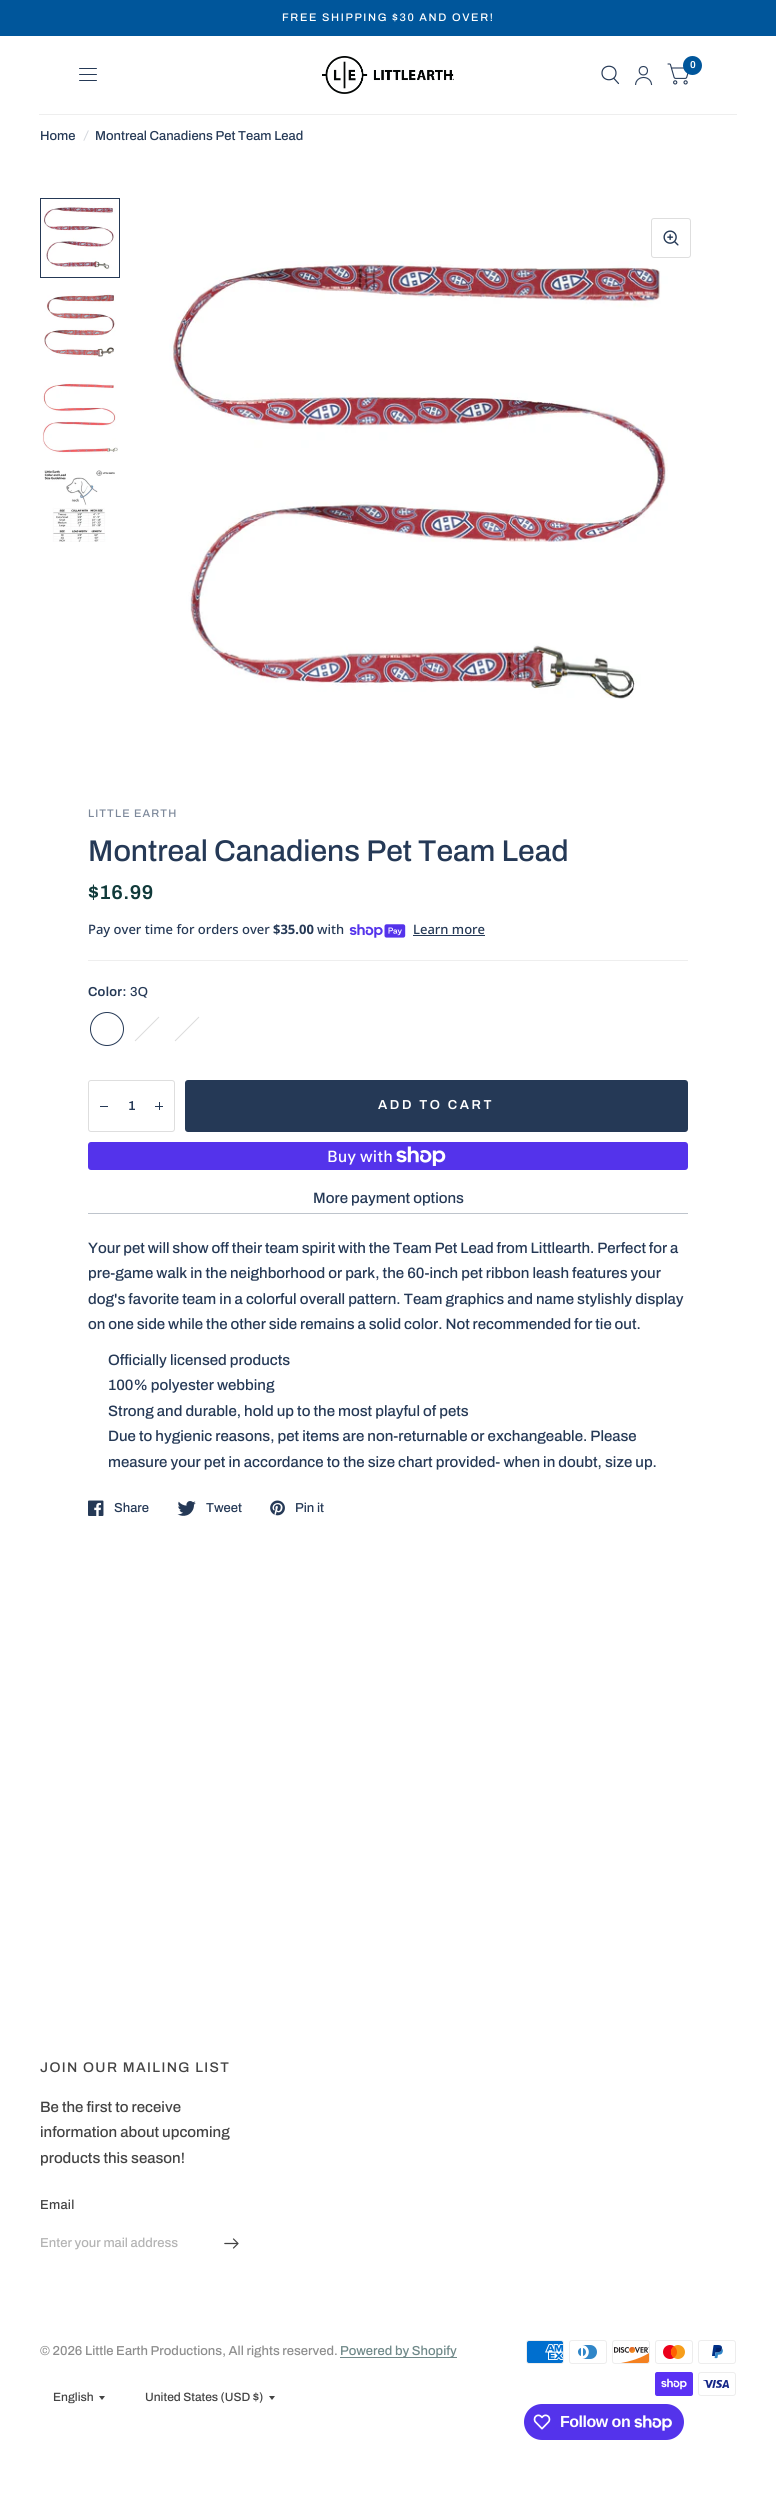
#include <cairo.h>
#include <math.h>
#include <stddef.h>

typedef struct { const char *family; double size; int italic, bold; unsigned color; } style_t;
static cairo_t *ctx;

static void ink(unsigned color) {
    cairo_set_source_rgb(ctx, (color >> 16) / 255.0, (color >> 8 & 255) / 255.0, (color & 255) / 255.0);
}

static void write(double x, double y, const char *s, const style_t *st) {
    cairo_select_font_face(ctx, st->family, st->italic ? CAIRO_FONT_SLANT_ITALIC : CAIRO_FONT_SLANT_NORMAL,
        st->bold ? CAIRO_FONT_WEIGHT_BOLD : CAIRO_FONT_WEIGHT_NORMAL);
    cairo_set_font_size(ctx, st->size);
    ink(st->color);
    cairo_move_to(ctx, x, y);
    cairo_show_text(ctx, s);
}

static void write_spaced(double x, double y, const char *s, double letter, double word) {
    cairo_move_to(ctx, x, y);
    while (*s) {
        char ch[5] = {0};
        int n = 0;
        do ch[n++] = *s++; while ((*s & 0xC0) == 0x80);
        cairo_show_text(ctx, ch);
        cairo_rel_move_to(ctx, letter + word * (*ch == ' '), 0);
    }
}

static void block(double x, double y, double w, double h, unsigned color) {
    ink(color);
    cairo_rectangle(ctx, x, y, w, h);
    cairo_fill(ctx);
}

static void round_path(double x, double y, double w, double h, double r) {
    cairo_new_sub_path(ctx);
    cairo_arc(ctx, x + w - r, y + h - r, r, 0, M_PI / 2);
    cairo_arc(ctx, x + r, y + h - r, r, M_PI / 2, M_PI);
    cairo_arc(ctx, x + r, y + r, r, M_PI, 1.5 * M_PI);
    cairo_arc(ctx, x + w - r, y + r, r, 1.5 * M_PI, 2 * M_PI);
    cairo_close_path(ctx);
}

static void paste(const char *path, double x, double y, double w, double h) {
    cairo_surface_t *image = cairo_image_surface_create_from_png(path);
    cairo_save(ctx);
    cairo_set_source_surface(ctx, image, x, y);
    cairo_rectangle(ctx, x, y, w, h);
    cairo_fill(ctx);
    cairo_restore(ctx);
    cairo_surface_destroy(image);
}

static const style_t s1 = {"Archivo SemiBold", 10, 0, 0, 0xffffff};
static const style_t s2 = {"Archivo Medium", 13, 0, 0, 0x253956};
static const style_t s3 = {"Archivo Medium", 13, 1, 0, 0xd3d7dd};
static const style_t s4 = {"Archivo Medium", 30, 0, 0, 0x253956};
static const style_t s5 = {"Noto Sans Medium", 13, 0, 0, 0x253956};
static const style_t s6 = {"Noto Sans", 13, 0, 1, 0x253956};
static const style_t s7 = {"Archivo SemiBold", 13, 0, 0, 0x253956};
static const style_t s8 = {"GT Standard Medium", 16, 0, 0, 0xffffff};
static const style_t s9 = {"Archivo Medium", 15, 0, 0, 0x253956};
static const style_t s10 = {"Archivo Medium", 15, 0, 0, 0x434343};
static const style_t s11 = {"Archivo Medium", 13, 0, 0, 0xb4b4b4};
static const style_t s12 = {"Archivo Medium", 13, 0, 0, 0x8e8e8e};
static const style_t s13 = {"Archivo Medium", 13, 0, 0, 0x708989};
static const style_t s14 = {"Archivo Medium", 12, 0, 0, 0x434343};

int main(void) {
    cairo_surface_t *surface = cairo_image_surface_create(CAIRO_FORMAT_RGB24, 776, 2505);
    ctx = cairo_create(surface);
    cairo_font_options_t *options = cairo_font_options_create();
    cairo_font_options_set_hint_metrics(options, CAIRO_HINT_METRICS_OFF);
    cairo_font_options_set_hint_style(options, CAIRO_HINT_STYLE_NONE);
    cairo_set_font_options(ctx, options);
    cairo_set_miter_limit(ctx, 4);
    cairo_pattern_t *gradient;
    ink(0xffffff);
    cairo_paint(ctx);
    block(0, 0, 776, 36, 0x00569b);
    cairo_select_font_face(ctx, "Archivo Medium", CAIRO_FONT_SLANT_NORMAL, CAIRO_FONT_WEIGHT_NORMAL);
    cairo_set_font_size(ctx, 11);
    ink(0xffffff);
    write_spaced(282, 21, "FREE SHIPPING $30 AND OVER!", 1.65, 0);
    block(39, 114, 698, 1, 0xeeeeee);
    paste("pic1.png", 322, 56, 132, 38);
    cairo_new_path(ctx);
    cairo_move_to(ctx, 614, 78.5);
    cairo_line_to(ctx, 618.5, 83.5);
    cairo_move_to(ctx, 616, 73);
    cairo_curve_to(ctx, 616, 82, 602, 82, 602, 73);
    cairo_curve_to(ctx, 602, 64, 616, 64, 616, 73);
    cairo_close_path(ctx);
    ink(0x253956);
    cairo_set_line_width(ctx, 1.2);
    cairo_set_line_cap(ctx, CAIRO_LINE_CAP_ROUND);
    cairo_set_line_join(ctx, CAIRO_LINE_JOIN_ROUND);
    cairo_stroke(ctx);
    paste("pic2.png", 635, 65, 18, 21);
    paste("pic3.png", 667, 63, 22, 22);
    ink(0x00569b);
    cairo_arc(ctx, 692.5, 65.5, 9.5, 0, 2 * M_PI);
    cairo_fill(ctx);
    write(690, 68, "0", &s1);
    ink(0x253956);
    round_path(79, 68, 18, 1, 0.5);
    cairo_fill(ctx);
    round_path(79, 74, 18, 1, 0.5);
    cairo_fill(ctx);
    round_path(79, 80, 18, 1, 0.5);
    cairo_fill(ctx);
    write(40, 140, "Home", &s2);
    write(84, 140, "/", &s3);
    write(95, 140, "Montreal Canadiens Pet Team Lead", &s2);
    paste("pic4.png", 44, 206, 72, 64);
    cairo_rectangle(ctx, 40.5, 198.5, 79, 79);
    cairo_set_line_width(ctx, 1);
    cairo_set_line_cap(ctx, CAIRO_LINE_CAP_BUTT);
    cairo_set_line_join(ctx, CAIRO_LINE_JOIN_MITER);
    cairo_stroke(ctx);
    paste("pic5.png", 44, 293, 72, 64);
    paste("pic6.png", 42, 382, 76, 72);
    paste("pic7.png", 44, 470, 71, 72);
    round_path(651.5, 218.5, 39, 39, 2.5);
    ink(0xdedede);
    cairo_stroke(ctx);
    paste("pic8.png", 663, 230, 16, 16);
    paste("pic9.png", 169, 261, 499, 438);
    cairo_set_font_size(ctx, 11);
    ink(0x7c889a);
    write_spaced(88, 817, "LITTLE EARTH", 1.1, 0);
    block(88, 960, 600, 1, 0xeeeeee);
    write(88, 861, "Montreal Canadiens Pet Team Lead", &s4);
    cairo_select_font_face(ctx, "Archivo SemiBold", CAIRO_FONT_SLANT_NORMAL, CAIRO_FONT_WEIGHT_NORMAL);
    cairo_set_font_size(ctx, 20);
    ink(0x103a3a);
    write_spaced(88, 899, "$16.99", 0.5, 0);
    write(88, 934, "Pay over time for orders over", &s5);
    write(273, 934, "$35.00", &s6);
    write(317, 934, "with", &s5);
    paste("pic10.png", 349, 924, 57, 14);
    write(413, 934, "Learn more", &s5);
    block(413, 935, 72, 1, 0x253956);
    cairo_select_font_face(ctx, "Archivo SemiBold", CAIRO_FONT_SLANT_NORMAL, CAIRO_FONT_WEIGHT_NORMAL);
    write_spaced(88, 996, "Color:", 0.25, 0);
    cairo_select_font_face(ctx, "Archivo Medium", CAIRO_FONT_SLANT_NORMAL, CAIRO_FONT_WEIGHT_NORMAL);
    write_spaced(130, 996, "3Q", 0.25, 0);
    cairo_new_path(ctx);
    cairo_arc(ctx, 107, 1029, 16.5, 0, 2 * M_PI);
    cairo_stroke(ctx);
    gradient = cairo_pattern_create_linear(130, 1012, 164, 1046);
    cairo_pattern_add_color_stop_rgba(gradient, 0.48, 1, 1, 1, 1);
    cairo_pattern_add_color_stop_rgba(gradient, 0.5, 0.871, 0.871, 0.871, 1);
    cairo_pattern_add_color_stop_rgba(gradient, 0.52, 1, 1, 1, 1);
    cairo_set_source(ctx, gradient);
    cairo_pattern_destroy(gradient);
    cairo_arc(ctx, 147, 1029, 17, 0, 2 * M_PI);
    cairo_fill(ctx);
    gradient = cairo_pattern_create_linear(170, 1012, 204, 1046);
    cairo_pattern_add_color_stop_rgba(gradient, 0.48, 1, 1, 1, 1);
    cairo_pattern_add_color_stop_rgba(gradient, 0.5, 0.871, 0.871, 0.871, 1);
    cairo_pattern_add_color_stop_rgba(gradient, 0.52, 1, 1, 1, 1);
    cairo_set_source(ctx, gradient);
    cairo_pattern_destroy(gradient);
    cairo_arc(ctx, 187, 1029, 17, 0, 2 * M_PI);
    cairo_fill(ctx);
    round_path(88.5, 1080.5, 86, 51, 2.5);
    ink(0xdedede);
    cairo_stroke(ctx);
    block(100, 1106, 8, 1, 0x253956);
    write(128, 1110, "1", &s7);
    block(159, 1102, 1, 8, 0x253956);
    block(155, 1106, 8, 1, 0x253956);
    round_path(185, 1080, 503, 52, 3);
    cairo_fill(ctx);
    ink(0xffffff);
    write_spaced(378, 1109, "ADD TO CART", 2.6, 0);
    ink(0x5433eb);
    round_path(88, 1142, 600, 28, 3);
    cairo_fill(ctx);
    write(327, 1162, "Buy with", &s8);
    paste("pic11.png", 396, 1146, 50, 20);
    write(313, 1203, "More payment options", &s9);
    block(88, 1213, 600, 1, 0xbec4cc);
    ink(0x253956);
    write_spaced(88, 1253, "Your pet will show off their team spirit with the Team Pet Lead from Littlearth. Perfect for a", 0, -0.25);
    write(88, 1278, "pre-game walk in the neighborhood or park, the 60-inch pet ribbon leash features your", &s9);
    write(88, 1304, "dog's favorite team in a colorful overall pattern. Team graphics and name stylishly display", &s9);
    write_spaced(88, 1329, "on one side while the other side remains a solid color. Not recommended for tie out.", 0, -0.2);
    write(108, 1365, "Officially licensed products", &s9);
    write(108, 1390, "100% polyester webbing", &s9);
    write(108, 1416, "Strong and durable, hold up to the most playful of pets", &s9);
    write(108, 1441, "Due to hygienic reasons, pet items are non-returnable or exchangeable. Please", &s9);
    write(108, 1467, "measure your pet in accordance to the size chart provided- when in doubt, size up.", &s9);
    paste("pic12.png", 88, 1500, 16, 16);
    write(114, 1512, "Share", &s2);
    paste("pic13.png", 177, 1501, 19, 15);
    write(206, 1512, "Tweet", &s2);
    paste("pic14.png", 270, 1500, 15, 16);
    write(295, 1512, "Pin it", &s2);
    cairo_set_font_size(ctx, 14);
    ink(0x434343);
    write_spaced(40, 2072, "JOIN OUR MAILING LIST", 1.4, 0);
    write(40, 2112, "Be the first to receive", &s10);
    write(40, 2137, "information about upcoming", &s10);
    write(40, 2163, "products this season!", &s10);
    cairo_set_font_size(ctx, 13);
    write_spaced(40, 2209, "Email", 0.25, 0);
    write(40, 2247, "Enter your mail address", &s11);
    paste("pic15.png", 224, 2238, 15, 11);
    write(40, 2355, "© 2026 Little Earth Productions, All rights reserved.", &s12);
    block(340, 2357, 117, 1, 0x708989);
    write(340, 2355, "Powered by Shopify", &s13);
    write(53, 2401, "English", &s14);
    cairo_new_path(ctx);
    cairo_move_to(ctx, 99, 2396);
    cairo_line_to(ctx, 105, 2396);
    cairo_line_to(ctx, 102, 2400);
    cairo_close_path(ctx);
    cairo_fill(ctx);
    write(145, 2401, "United States (USD $)", &s14);
    cairo_new_path(ctx);
    cairo_move_to(ctx, 269, 2396);
    cairo_line_to(ctx, 275, 2396);
    cairo_line_to(ctx, 272, 2400);
    cairo_close_path(ctx);
    cairo_fill(ctx);
    paste("pic16.png", 526, 2340, 38, 24);
    paste("pic17.png", 569, 2340, 38, 24);
    paste("pic18.png", 612, 2340, 38, 24);
    paste("pic19.png", 655, 2340, 38, 24);
    paste("pic20.png", 698, 2340, 38, 24);
    paste("pic21.png", 655, 2372, 38, 24);
    paste("pic22.png", 698, 2372, 38, 24);
    ink(0x5433eb);
    round_path(524, 2404, 160, 36, 18);
    cairo_fill(ctx);
    paste("pic23.png", 533, 2414, 18, 16);
    cairo_select_font_face(ctx, "Liberation Sans", CAIRO_FONT_SLANT_NORMAL, CAIRO_FONT_WEIGHT_BOLD);
    cairo_set_font_size(ctx, 16);
    ink(0xffffff);
    write_spaced(560, 2427, "Follow on", -0.5, 0);
    paste("pic24.png", 634, 2415, 38, 16);
    cairo_surface_write_to_png(surface, "screenshot.png");
    cairo_font_options_destroy(options);
    cairo_destroy(ctx);
    cairo_surface_destroy(surface);
    return 0;
}
